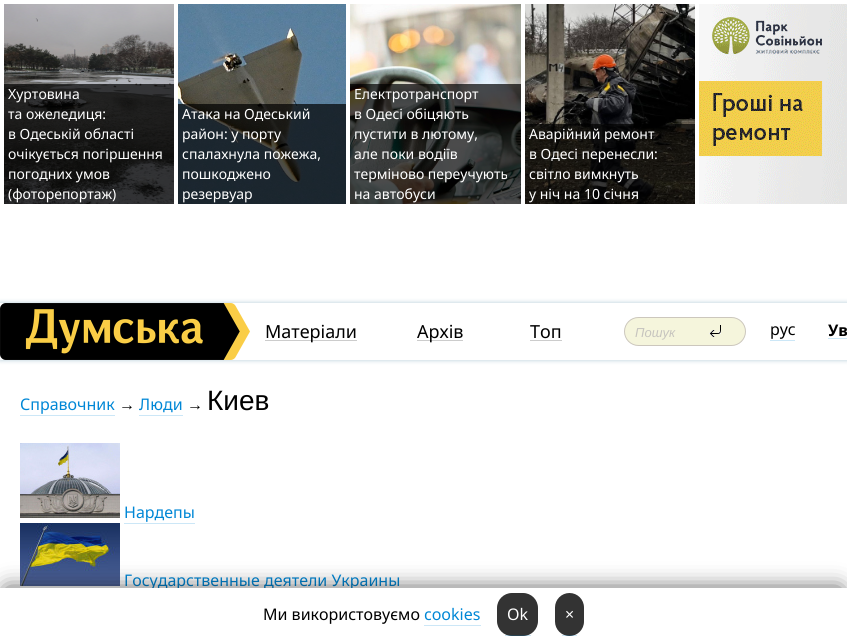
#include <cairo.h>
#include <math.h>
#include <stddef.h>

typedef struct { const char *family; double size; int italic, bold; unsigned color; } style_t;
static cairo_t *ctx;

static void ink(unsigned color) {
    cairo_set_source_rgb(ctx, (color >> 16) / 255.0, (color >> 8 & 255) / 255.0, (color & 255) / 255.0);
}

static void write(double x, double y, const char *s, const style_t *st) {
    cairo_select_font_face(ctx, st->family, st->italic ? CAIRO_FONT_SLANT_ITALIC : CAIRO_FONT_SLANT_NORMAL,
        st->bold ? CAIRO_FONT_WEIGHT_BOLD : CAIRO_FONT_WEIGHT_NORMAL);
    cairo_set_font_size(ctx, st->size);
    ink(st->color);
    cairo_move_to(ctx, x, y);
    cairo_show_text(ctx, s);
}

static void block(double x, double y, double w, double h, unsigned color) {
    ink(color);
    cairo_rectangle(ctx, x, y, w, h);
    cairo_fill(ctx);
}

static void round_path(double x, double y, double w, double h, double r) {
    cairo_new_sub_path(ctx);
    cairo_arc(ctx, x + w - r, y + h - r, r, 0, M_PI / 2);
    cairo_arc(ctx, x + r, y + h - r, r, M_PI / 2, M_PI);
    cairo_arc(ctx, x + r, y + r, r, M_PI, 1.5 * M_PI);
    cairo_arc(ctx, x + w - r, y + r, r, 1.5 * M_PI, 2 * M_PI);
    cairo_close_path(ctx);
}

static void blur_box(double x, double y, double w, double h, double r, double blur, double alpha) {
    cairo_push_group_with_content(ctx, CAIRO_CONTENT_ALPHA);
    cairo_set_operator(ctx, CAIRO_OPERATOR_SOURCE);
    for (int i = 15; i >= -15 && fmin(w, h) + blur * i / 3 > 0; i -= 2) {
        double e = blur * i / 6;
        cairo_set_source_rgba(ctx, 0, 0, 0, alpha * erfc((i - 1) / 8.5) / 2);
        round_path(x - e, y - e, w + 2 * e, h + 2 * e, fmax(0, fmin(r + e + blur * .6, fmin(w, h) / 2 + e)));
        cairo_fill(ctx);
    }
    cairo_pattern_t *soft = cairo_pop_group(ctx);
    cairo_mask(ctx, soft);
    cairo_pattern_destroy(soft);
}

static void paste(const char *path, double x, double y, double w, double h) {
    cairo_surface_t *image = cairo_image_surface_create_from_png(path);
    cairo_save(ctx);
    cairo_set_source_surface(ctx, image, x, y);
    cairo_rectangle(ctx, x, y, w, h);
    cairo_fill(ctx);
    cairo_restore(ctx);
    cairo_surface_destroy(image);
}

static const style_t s1 = {"Noto Sans", 14, 0, 0, 0xffffff};
static const style_t s2 = {"Noto Sans", 18, 0, 0, 0x000000};
static const style_t s3 = {"Liberation Sans", 13, 1, 0, 0xc6c4be};
static const style_t s4 = {"Noto Sans", 16, 0, 0, 0x000000};
static const style_t s5 = {"Noto Sans", 16, 0, 1, 0x000000};
static const style_t s6 = {"Noto Sans", 16, 0, 0, 0x0087d6};
static const style_t s7 = {"Liberation Sans", 16, 0, 0, 0x000000};
static const style_t s8 = {"Liberation Sans", 28, 0, 0, 0x000000};
static const style_t s9 = {"Noto Sans", 16, 0, 0, 0xffffff};

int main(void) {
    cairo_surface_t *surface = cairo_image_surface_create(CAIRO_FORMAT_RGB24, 847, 638);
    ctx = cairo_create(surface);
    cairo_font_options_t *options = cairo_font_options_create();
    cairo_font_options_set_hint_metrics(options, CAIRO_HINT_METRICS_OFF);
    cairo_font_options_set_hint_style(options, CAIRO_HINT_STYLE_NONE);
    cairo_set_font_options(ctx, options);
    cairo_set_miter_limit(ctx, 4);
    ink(0xffffff);
    cairo_paint(ctx);
    paste("pic1.png", 4, 4, 170, 200);
    cairo_set_source_rgba(ctx, 0, 0, 0, 0.7);
    cairo_rectangle(ctx, 4, 84, 4, 120);
    cairo_fill(ctx);
    cairo_rectangle(ctx, 170, 84, 4, 120);
    cairo_fill(ctx);
    cairo_rectangle(ctx, 8, 84, 162, 120);
    cairo_fill(ctx);
    write(8, 99, "Хуртовина", &s1);
    write(8, 119, "та ожеледиця:", &s1);
    write(8, 139, "в Одеській області", &s1);
    write(8, 159, "очікується погіршення", &s1);
    write(8, 179, "погодних умов", &s1);
    write(8, 199, "(фоторепортаж)", &s1);
    paste("pic2.png", 178, 4, 168, 200);
    cairo_set_source_rgba(ctx, 0, 0, 0, 0.7);
    cairo_rectangle(ctx, 178, 104, 4, 100);
    cairo_fill(ctx);
    cairo_rectangle(ctx, 342, 104, 4, 100);
    cairo_fill(ctx);
    cairo_rectangle(ctx, 182, 104, 160, 100);
    cairo_fill(ctx);
    write(182, 119, "Атака на Одеський", &s1);
    write(182, 139, "район: у порту", &s1);
    write(182, 159, "спалахнула пожежа,", &s1);
    write(182, 179, "пошкоджено", &s1);
    write(182, 199, "резервуар", &s1);
    paste("pic3.png", 350, 4, 171, 200);
    cairo_set_source_rgba(ctx, 0, 0, 0, 0.7);
    cairo_rectangle(ctx, 350, 84, 4, 120);
    cairo_fill(ctx);
    cairo_rectangle(ctx, 517, 84, 4, 120);
    cairo_fill(ctx);
    cairo_rectangle(ctx, 354, 84, 163, 120);
    cairo_fill(ctx);
    write(354, 99, "Електротранспорт", &s1);
    write(354, 119, "в Одесі обіцяють", &s1);
    write(354, 139, "пустити в лютому,", &s1);
    write(354, 159, "але поки водіїв", &s1);
    write(354, 179, "терміново переучують", &s1);
    write(354, 199, "на автобуси", &s1);
    paste("pic4.png", 525, 4, 170, 200);
    cairo_set_source_rgba(ctx, 0, 0, 0, 0.7);
    cairo_rectangle(ctx, 525, 124, 4, 80);
    cairo_fill(ctx);
    cairo_rectangle(ctx, 691, 124, 4, 80);
    cairo_fill(ctx);
    cairo_rectangle(ctx, 529, 124, 162, 80);
    cairo_fill(ctx);
    write(529, 139, "Аварійний ремонт", &s1);
    write(529, 159, "в Одесі перенесли:", &s1);
    write(529, 179, "світло вимкнуть", &s1);
    write(529, 199, "у ніч на 10 січня", &s1);
    paste("pic5.png", 699, 4, 148, 200);
    cairo_save(ctx);
    cairo_set_fill_rule(ctx, CAIRO_FILL_RULE_EVEN_ODD);
    cairo_new_path(ctx);
    cairo_move_to(ctx, 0, 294);
    cairo_line_to(ctx, 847, 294);
    cairo_line_to(ctx, 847, 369);
    cairo_line_to(ctx, 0, 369);
    cairo_close_path(ctx);
    cairo_move_to(ctx, 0, 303);
    cairo_line_to(ctx, 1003, 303);
    cairo_line_to(ctx, 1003, 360);
    cairo_line_to(ctx, 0, 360);
    cairo_close_path(ctx);
    cairo_clip(ctx);
    ink(0x004f7a);
    blur_box(0, 303, 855, 57, 0, 2.5, 0.3);
    cairo_restore(ctx);
    paste("pic6.png", 0, 303, 250, 57);
    block(265, 340, 92, 1, 0xcccccc);
    write(265, 338, "Матеріали", &s2);
    block(417, 340, 46, 1, 0xcccccc);
    write(417, 338, "Архів", &s2);
    block(530, 340, 32, 1, 0xcccccc);
    write(530, 338, "Топ", &s2);
    ink(0xf5f5dc);
    round_path(624.5, 317.5, 121, 28, 14);
    cairo_fill_preserve(ctx);
    ink(0xccc7bd);
    cairo_set_line_width(ctx, 1);
    cairo_stroke(ctx);
    write(635, 337, "Пошук", &s3);
    paste("pic7.png", 709, 325, 12, 12);
    write(770, 335, "рус", &s4);
    block(770, 340, 25, 1, 0xcce7f7);
    block(828, 338, 19, 1, 0xcce7f7);
    write(828, 336, "Ув", &s5);
    write(20, 410, "Справочник", &s6);
    block(20, 415, 95, 1, 0xcce7f7);
    write(119, 410, "→", &s7);
    write(139, 410, "Люди", &s6);
    block(139, 415, 44, 1, 0xcce7f7);
    write(187, 410, "→", &s7);
    write(207, 410, "Киев", &s8);
    paste("pic8.png", 20, 443, 100, 75);
    write(124, 518, "Нардепы", &s6);
    block(124, 523, 71, 1, 0xcce7f7);
    paste("pic9.png", 20, 523, 100, 63);
    write(124, 586, "Государственные деятели Украины", &s6);
    ink(0x000000);
    blur_box(7, 590, 833, 36, 0, 11.5, 0.75);
    block(0, 588, 847, 50, 0xffffff);
    write(263, 620, "Ми використовуємо", &s4);
    write(424, 620, "cookies", &s6);
    block(424, 625, 57, 1, 0xcce7f7);
    ink(0x333333);
    round_path(497, 593, 41, 43, 15);
    cairo_fill(ctx);
    write(507, 620, "Ok", &s9);
    cairo_set_source_rgba(ctx, 0, 0.529, 0.839, 0.2);
    cairo_rectangle(ctx, 505, 635, 26, 1);
    cairo_fill(ctx);
    ink(0x333333);
    round_path(555, 593, 29, 43, 14.5);
    cairo_fill(ctx);
    write(565, 620, "×", &s9);
    cairo_set_source_rgba(ctx, 0, 0.529, 0.839, 0.2);
    cairo_rectangle(ctx, 562, 635, 15, 1);
    cairo_fill(ctx);
    cairo_surface_write_to_png(surface, "screenshot.png");
    cairo_font_options_destroy(options);
    cairo_destroy(ctx);
    cairo_surface_destroy(surface);
    return 0;
}
